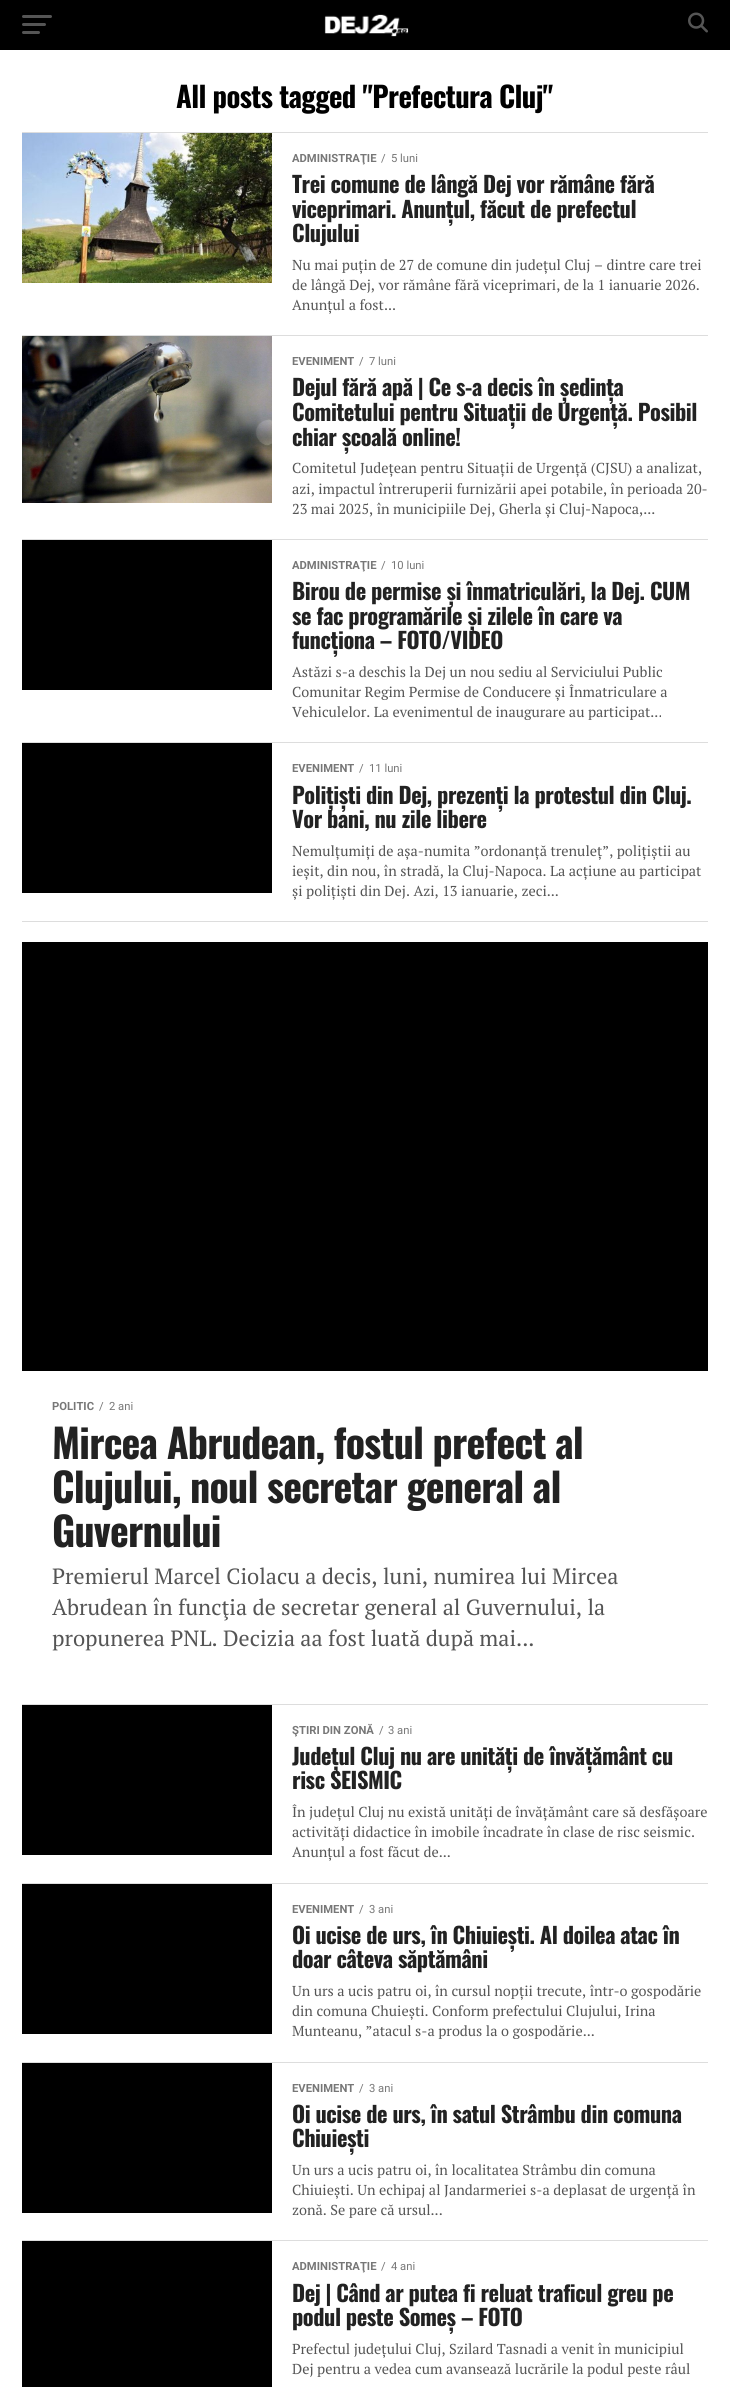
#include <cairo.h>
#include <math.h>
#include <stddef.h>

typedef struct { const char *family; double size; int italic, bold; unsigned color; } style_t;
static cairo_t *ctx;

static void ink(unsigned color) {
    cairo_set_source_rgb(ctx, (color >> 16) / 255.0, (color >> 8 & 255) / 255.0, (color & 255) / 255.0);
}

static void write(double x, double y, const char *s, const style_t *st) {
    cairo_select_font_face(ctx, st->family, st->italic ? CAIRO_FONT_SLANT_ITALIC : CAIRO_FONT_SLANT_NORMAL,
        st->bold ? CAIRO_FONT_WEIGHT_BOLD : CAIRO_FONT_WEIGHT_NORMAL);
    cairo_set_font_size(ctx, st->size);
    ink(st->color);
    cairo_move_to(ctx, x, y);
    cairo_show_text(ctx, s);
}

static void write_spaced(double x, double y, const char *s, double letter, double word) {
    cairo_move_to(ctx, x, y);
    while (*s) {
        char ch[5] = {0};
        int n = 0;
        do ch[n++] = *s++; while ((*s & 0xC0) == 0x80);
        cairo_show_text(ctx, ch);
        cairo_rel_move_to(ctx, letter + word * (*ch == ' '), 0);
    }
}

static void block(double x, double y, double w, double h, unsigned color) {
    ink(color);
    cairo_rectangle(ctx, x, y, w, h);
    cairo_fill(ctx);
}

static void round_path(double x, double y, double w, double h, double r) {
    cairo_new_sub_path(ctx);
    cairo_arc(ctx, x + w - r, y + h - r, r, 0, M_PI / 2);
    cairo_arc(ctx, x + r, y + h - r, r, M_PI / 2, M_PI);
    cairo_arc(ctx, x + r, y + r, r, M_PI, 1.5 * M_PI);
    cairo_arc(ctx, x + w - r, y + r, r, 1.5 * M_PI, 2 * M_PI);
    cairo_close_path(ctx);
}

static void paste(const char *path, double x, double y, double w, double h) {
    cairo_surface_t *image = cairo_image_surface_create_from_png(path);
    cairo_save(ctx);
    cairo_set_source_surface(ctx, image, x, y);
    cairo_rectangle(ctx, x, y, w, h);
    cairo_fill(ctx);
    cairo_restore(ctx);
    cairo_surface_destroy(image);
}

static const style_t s1 = {"Roboto", 11.25, 0, 1, 0x777777};
static const style_t s2 = {"Roboto", 11.25, 0, 0, 0x777777};
static const style_t s3 = {"PT Serif", 14.4, 0, 0, 0x555555};
static const style_t s4 = {"PT Serif", 22, 0, 0, 0x555555};

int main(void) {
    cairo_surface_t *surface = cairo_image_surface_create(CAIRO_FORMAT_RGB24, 730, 2387);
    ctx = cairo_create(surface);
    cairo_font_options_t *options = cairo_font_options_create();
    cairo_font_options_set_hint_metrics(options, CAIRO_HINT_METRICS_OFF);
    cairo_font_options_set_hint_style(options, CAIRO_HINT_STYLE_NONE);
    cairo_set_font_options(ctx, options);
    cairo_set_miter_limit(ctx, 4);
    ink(0xffffff);
    cairo_paint(ctx);
    block(0, 0, 730, 50, 0x000000);
    ink(0x555555);
    round_path(22, 15, 30, 3, 1.5);
    cairo_fill(ctx);
    round_path(22, 23, 24, 3, 1.5);
    cairo_fill(ctx);
    round_path(22, 31, 18, 3, 1.5);
    cairo_fill(ctx);
    paste("pic1.png", 324, 14, 85, 23);
    paste("pic2.png", 688, 12, 20, 21);
    cairo_select_font_face(ctx, "Oswald", CAIRO_FONT_SLANT_NORMAL, CAIRO_FONT_WEIGHT_BOLD);
    cairo_set_font_size(ctx, 28.75);
    ink(0x000000);
    write_spaced(176, 108, "All posts tagged \"Prefectura Cluj\"", -0.6, 0);
    block(22, 132, 686, 1, 0xdddddd);
    paste("pic3.png", 22, 133, 250, 150);
    write(292, 162, "ADMINISTRAŢIE", &s1);
    write(381, 162, "/", &s2);
    write(391, 162, "5 luni", &s2);
    cairo_select_font_face(ctx, "Oswald", CAIRO_FONT_SLANT_NORMAL, CAIRO_FONT_WEIGHT_BOLD);
    cairo_set_font_size(ctx, 22.4);
    ink(0x222222);
    write_spaced(292, 193, "Trei comune de lângă Dej vor rămâne fără", -0.45, 0);
    write_spaced(292, 218, "viceprimari. Anunțul, făcut de prefectul", -0.45, 0);
    write_spaced(292, 242, "Clujului", -0.45, 0);
    write(292, 270, "Nu mai puțin de 27 de comune din județul Cluj – dintre care trei", &s3);
    write(292, 290, "de lângă Dej, vor rămâne fără viceprimari, de la 1 ianuarie 2026.", &s3);
    write(292, 310, "Anunțul a fost...", &s3);
    block(22, 335, 686, 1, 0xdddddd);
    paste("pic4.png", 22, 336, 250, 167);
    write(292, 365, "EVENIMENT", &s1);
    write(359, 365, "/", &s2);
    write(369, 365, "7 luni", &s2);
    cairo_select_font_face(ctx, "Oswald", CAIRO_FONT_SLANT_NORMAL, CAIRO_FONT_WEIGHT_BOLD);
    cairo_set_font_size(ctx, 22.4);
    ink(0x222222);
    write_spaced(292, 396, "Dejul fără apă | Ce s-a decis în ședința", -0.45, 0);
    write_spaced(292, 421, "Comitetului pentru Situații de Urgență. Posibil", -0.45, 0);
    write_spaced(292, 446, "chiar școală online!", -0.45, 0);
    write(292, 473, "Comitetul Județean pentru Situații de Urgență (CJSU) a analizat,", &s3);
    write(292, 494, "azi, impactul întreruperii furnizării apei potabile, în perioada 20-", &s3);
    write(292, 514, "23 mai 2025, în municipiile Dej, Gherla și Cluj-Napoca,...", &s3);
    block(22, 539, 686, 1, 0xdddddd);
    block(22, 540, 250, 150, 0x000000);
    write(292, 569, "ADMINISTRAŢIE", &s1);
    write(381, 569, "/", &s2);
    write(391, 569, "10 luni", &s2);
    cairo_select_font_face(ctx, "Oswald", CAIRO_FONT_SLANT_NORMAL, CAIRO_FONT_WEIGHT_BOLD);
    cairo_set_font_size(ctx, 22.4);
    ink(0x222222);
    write_spaced(292, 600, "Birou de permise și înmatriculări, la Dej. CUM", -0.45, 0);
    write_spaced(292, 625, "se fac programările și zilele în care va", -0.45, 0);
    write_spaced(292, 649, "funcționa – FOTO/VIDEO", -0.45, 0);
    write(292, 677, "Astăzi s-a deschis la Dej un nou sediu al Serviciului Public", &s3);
    write(292, 697, "Comunitar Regim Permise de Conducere și Înmatriculare a", &s3);
    write(292, 717, "Vehiculelor. La evenimentul de inaugurare au participat...", &s3);
    block(22, 742, 686, 1, 0xdddddd);
    block(22, 743, 250, 150, 0x000000);
    write(292, 772, "EVENIMENT", &s1);
    write(359, 772, "/", &s2);
    write(369, 772, "11 luni", &s2);
    cairo_select_font_face(ctx, "Oswald", CAIRO_FONT_SLANT_NORMAL, CAIRO_FONT_WEIGHT_BOLD);
    cairo_set_font_size(ctx, 22.4);
    ink(0x222222);
    write_spaced(292, 804, "Polițiști din Dej, prezenți la protestul din Cluj.", -0.45, 0);
    write_spaced(292, 828, "Vor bani, nu zile libere", -0.45, 0);
    write(292, 856, "Nemulțumiți de așa-numita ”ordonanță trenuleț”, polițiștii au", &s3);
    write(292, 876, "ieșit, din nou, în stradă, la Cluj-Napoca. La acțiune au participat", &s3);
    write(292, 896, "și polițiști din Dej. Azi, 13 ianuarie, zeci...", &s3);
    block(22, 921, 686, 1, 0xdddddd);
    block(22, 942, 686, 429, 0x000000);
    write(52, 1410, "POLITIC", &s1);
    write(99, 1410, "/", &s2);
    write(109, 1410, "2 ani", &s2);
    cairo_select_font_face(ctx, "Oswald", CAIRO_FONT_SLANT_NORMAL, CAIRO_FONT_WEIGHT_BOLD);
    cairo_set_font_size(ctx, 40);
    ink(0x222222);
    write_spaced(52, 1459, "Mircea Abrudean, fostul prefect al", -0.8, 0);
    write_spaced(52, 1503, "Clujului, noul secretar general al", -0.8, 0);
    write_spaced(52, 1547, "Guvernului", -0.8, 0);
    write(52, 1584, "Premierul Marcel Ciolacu a decis, luni, numirea lui Mircea", &s4);
    write(52, 1615, "Abrudean în funcţia de secretar general al Guvernului, la", &s4);
    write(52, 1646, "propunerea PNL. Decizia aa fost luată după mai...", &s4);
    block(22, 1704, 686, 1, 0xdddddd);
    block(22, 1705, 250, 150, 0x000000);
    write(292, 1734, "ŞTIRI DIN ZONĂ", &s1);
    write(379, 1734, "/", &s2);
    write(388, 1734, "3 ani", &s2);
    cairo_select_font_face(ctx, "Oswald", CAIRO_FONT_SLANT_NORMAL, CAIRO_FONT_WEIGHT_BOLD);
    cairo_set_font_size(ctx, 22.4);
    ink(0x222222);
    write_spaced(292, 1765, "Județul Cluj nu are unități de învățământ cu", -0.45, 0);
    write_spaced(292, 1789, "risc SEISMIC", -0.45, 0);
    write(292, 1817, "În județul Cluj nu există unități de învățământ care să desfășoare", &s3);
    write(292, 1837, "activități didactice în imobile încadrate în clase de risc seismic.", &s3);
    write(292, 1857, "Anunțul a fost făcut de...", &s3);
    block(22, 1883, 686, 1, 0xdddddd);
    block(22, 1884, 250, 150, 0x000000);
    write(292, 1913, "EVENIMENT", &s1);
    write(359, 1913, "/", &s2);
    write(369, 1913, "3 ani", &s2);
    cairo_select_font_face(ctx, "Oswald", CAIRO_FONT_SLANT_NORMAL, CAIRO_FONT_WEIGHT_BOLD);
    cairo_set_font_size(ctx, 22.4);
    ink(0x222222);
    write_spaced(292, 1944, "Oi ucise de urs, în Chiuiești. Al doilea atac în", -0.45, 0);
    write_spaced(292, 1968, "doar câteva săptămâni", -0.45, 0);
    write(292, 1996, "Un urs a ucis patru oi, în cursul nopții trecute, într-o gospodărie", &s3);
    write(292, 2016, "din comuna Chuiești. Conform prefectului Clujului, Irina", &s3);
    write(292, 2036, "Munteanu, ”atacul s-a produs la o gospodărie...", &s3);
    block(22, 2062, 686, 1, 0xdddddd);
    block(22, 2063, 250, 150, 0x000000);
    write(292, 2092, "EVENIMENT", &s1);
    write(359, 2092, "/", &s2);
    write(369, 2092, "3 ani", &s2);
    cairo_select_font_face(ctx, "Oswald", CAIRO_FONT_SLANT_NORMAL, CAIRO_FONT_WEIGHT_BOLD);
    cairo_set_font_size(ctx, 22.4);
    ink(0x222222);
    write_spaced(292, 2123, "Oi ucise de urs, în satul Strâmbu din comuna", -0.45, 0);
    write_spaced(292, 2147, "Chiuiești", -0.45, 0);
    write(292, 2175, "Un urs a ucis patru oi, în localitatea Strâmbu din comuna", &s3);
    write(292, 2195, "Chiuiești. Un echipaj al Jandarmeriei s-a deplasat de urgență în", &s3);
    write(292, 2215, "zonă. Se pare că ursul...", &s3);
    block(22, 2240, 686, 1, 0xdddddd);
    block(22, 2241, 250, 146, 0x000000);
    write(292, 2270, "ADMINISTRAŢIE", &s1);
    write(381, 2270, "/", &s2);
    write(391, 2270, "4 ani", &s2);
    cairo_select_font_face(ctx, "Oswald", CAIRO_FONT_SLANT_NORMAL, CAIRO_FONT_WEIGHT_BOLD);
    cairo_set_font_size(ctx, 22.4);
    ink(0x222222);
    write_spaced(292, 2302, "Dej | Când ar putea fi reluat traficul greu pe", -0.45, 0);
    write_spaced(292, 2326, "podul peste Someș – FOTO", -0.45, 0);
    write(292, 2354, "Prefectul județului Cluj, Szilard Tasnadi a venit în municipiul", &s3);
    write(292, 2374, "Dej pentru a vedea cum avansează lucrările la podul peste râul", &s3);
    cairo_surface_write_to_png(surface, "screenshot.png");
    cairo_font_options_destroy(options);
    cairo_destroy(ctx);
    cairo_surface_destroy(surface);
    return 0;
}
